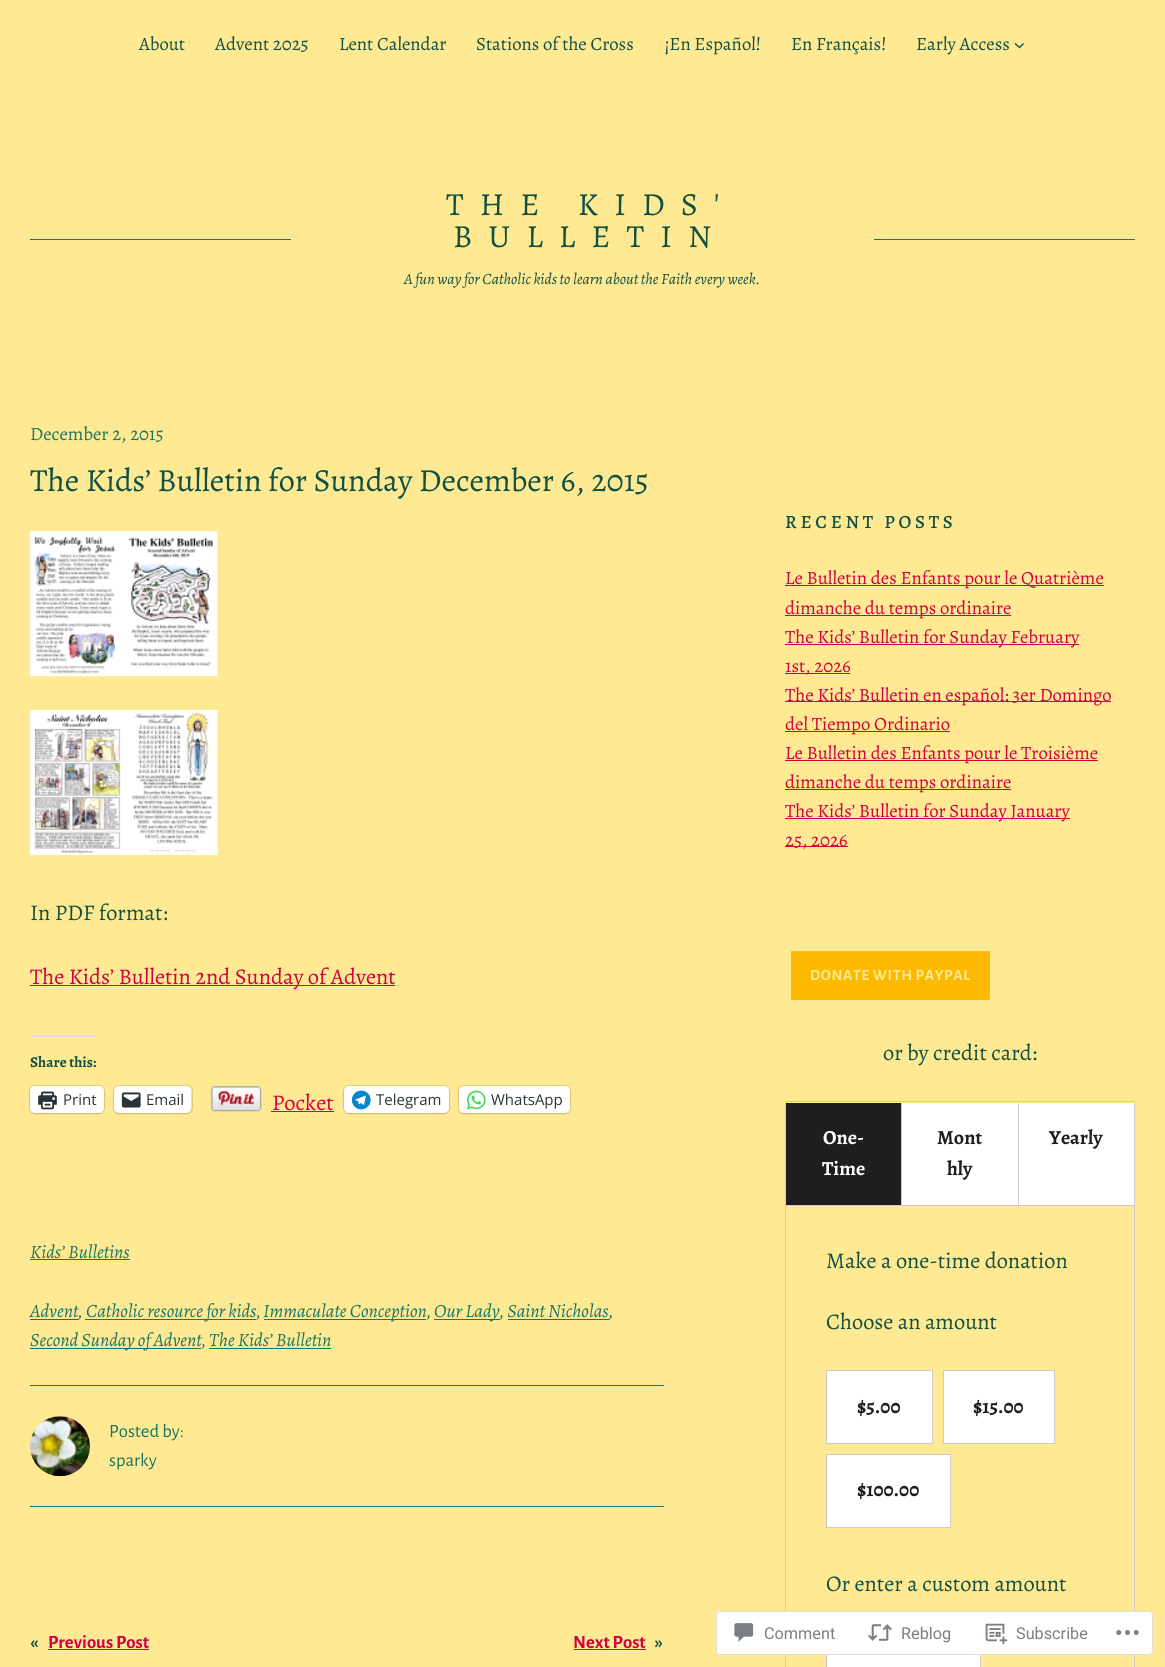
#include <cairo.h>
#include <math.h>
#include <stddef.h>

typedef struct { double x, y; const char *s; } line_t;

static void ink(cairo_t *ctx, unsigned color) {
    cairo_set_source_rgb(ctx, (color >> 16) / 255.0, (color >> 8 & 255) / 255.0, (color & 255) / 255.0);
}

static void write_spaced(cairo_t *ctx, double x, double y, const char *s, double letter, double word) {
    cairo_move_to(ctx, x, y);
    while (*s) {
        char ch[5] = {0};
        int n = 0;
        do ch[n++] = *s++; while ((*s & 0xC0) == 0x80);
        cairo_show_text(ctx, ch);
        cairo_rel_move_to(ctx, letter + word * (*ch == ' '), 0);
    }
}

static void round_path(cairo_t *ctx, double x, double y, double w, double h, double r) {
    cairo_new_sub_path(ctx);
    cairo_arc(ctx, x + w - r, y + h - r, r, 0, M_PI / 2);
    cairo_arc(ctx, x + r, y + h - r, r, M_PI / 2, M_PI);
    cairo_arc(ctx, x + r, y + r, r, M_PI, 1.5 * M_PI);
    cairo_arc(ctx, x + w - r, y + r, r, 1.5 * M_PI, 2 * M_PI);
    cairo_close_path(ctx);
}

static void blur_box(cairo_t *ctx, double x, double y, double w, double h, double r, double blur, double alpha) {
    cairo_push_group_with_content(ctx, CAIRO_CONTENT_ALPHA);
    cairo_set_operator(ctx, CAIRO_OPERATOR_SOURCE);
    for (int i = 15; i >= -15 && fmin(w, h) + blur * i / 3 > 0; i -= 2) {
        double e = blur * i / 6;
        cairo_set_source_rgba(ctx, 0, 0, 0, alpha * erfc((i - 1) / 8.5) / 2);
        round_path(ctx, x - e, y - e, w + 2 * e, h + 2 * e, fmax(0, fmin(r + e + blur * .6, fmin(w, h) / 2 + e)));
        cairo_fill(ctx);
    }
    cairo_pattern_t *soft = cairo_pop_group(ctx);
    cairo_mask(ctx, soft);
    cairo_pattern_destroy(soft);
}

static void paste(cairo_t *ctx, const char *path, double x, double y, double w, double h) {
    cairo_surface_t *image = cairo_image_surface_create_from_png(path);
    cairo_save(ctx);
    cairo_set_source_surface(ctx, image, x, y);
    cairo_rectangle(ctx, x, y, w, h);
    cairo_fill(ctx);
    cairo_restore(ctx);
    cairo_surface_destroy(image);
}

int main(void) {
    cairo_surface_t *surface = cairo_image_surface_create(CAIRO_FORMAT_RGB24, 1165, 1667);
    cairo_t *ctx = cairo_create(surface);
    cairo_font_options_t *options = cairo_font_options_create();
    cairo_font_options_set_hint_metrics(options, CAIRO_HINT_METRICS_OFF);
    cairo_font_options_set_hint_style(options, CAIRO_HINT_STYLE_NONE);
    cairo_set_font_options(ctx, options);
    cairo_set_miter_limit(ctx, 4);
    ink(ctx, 0xFFE993);
    cairo_paint(ctx);
    cairo_select_font_face(ctx, "Alegreya", CAIRO_FONT_SLANT_NORMAL, CAIRO_FONT_WEIGHT_NORMAL);
    cairo_set_font_size(ctx, 18.7);
    ink(ctx, 0x115143);
    {
        static const line_t items[] = {
            {139, 50, "About"},
            {215, 50, "Advent 2025"},
            {339, 50, "Lent Calendar"},
            {476, 50, "Stations of the Cross"},
            {664, 50, "¡En Español!"},
            {791, 50, "En Français!"},
            {916, 50, "Early Access"},
        };
        for (size_t i = 0; i < sizeof items / sizeof *items; i++) {
            cairo_move_to(ctx, items[i].x, items[i].y);
            cairo_show_text(ctx, items[i].s);
        }
    }
    cairo_new_path(ctx);
    cairo_move_to(ctx, 1015, 43.5);
    cairo_line_to(ctx, 1019.5, 47.5);
    cairo_line_to(ctx, 1023.5, 43.5);
    cairo_set_line_width(ctx, 1.4);
    cairo_stroke(ctx);
    ink(ctx, 0x187661);
    cairo_rectangle(ctx, 30, 239, 261, 1);
    cairo_fill(ctx);
    cairo_set_font_size(ctx, 32.25);
    ink(ctx, 0x115143);
    write_spaced(ctx, 446, 215, "THE KIDS'", 16.1, 0);
    write_spaced(ctx, 453, 247, "BULLETIN", 16.1, 0);
    cairo_select_font_face(ctx, "Alegreya", CAIRO_FONT_SLANT_ITALIC, CAIRO_FONT_WEIGHT_NORMAL);
    cairo_set_font_size(ctx, 15.6);
    cairo_move_to(ctx, 404, 284);
    cairo_show_text(ctx, "A fun way for Catholic kids to learn about the Faith every week.");
    ink(ctx, 0x187661);
    cairo_rectangle(ctx, 874, 239, 261, 1);
    cairo_fill(ctx);
    cairo_select_font_face(ctx, "Alegreya", CAIRO_FONT_SLANT_NORMAL, CAIRO_FONT_WEIGHT_NORMAL);
    cairo_set_font_size(ctx, 18.7);
    cairo_move_to(ctx, 30, 440);
    cairo_show_text(ctx, "December 2, 2015");
    cairo_set_font_size(ctx, 32.25);
    ink(ctx, 0x115143);
    cairo_move_to(ctx, 30, 491);
    cairo_show_text(ctx, "The Kids’ Bulletin for Sunday December 6, 2015");
    paste(ctx, "media/1.png", 30, 531, 188, 146);
    paste(ctx, "media/2.png", 30, 710, 188, 145);
    cairo_set_font_size(ctx, 22.4);
    cairo_move_to(ctx, 30, 920);
    cairo_show_text(ctx, "In PDF format:");
    ink(ctx, 0xD20044);
    cairo_rectangle(ctx, 30, 985, 365, 1);
    cairo_fill(ctx);
    cairo_move_to(ctx, 30, 984);
    cairo_show_text(ctx, "The Kids’ Bulletin 2nd Sunday of Advent");
    ink(ctx, 0xDCDCDE);
    cairo_rectangle(ctx, 30, 1036, 66, 1);
    cairo_fill(ctx);
    cairo_select_font_face(ctx, "Alegreya", CAIRO_FONT_SLANT_NORMAL, CAIRO_FONT_WEIGHT_BOLD);
    cairo_set_font_size(ctx, 15);
    ink(ctx, 0x115143);
    cairo_move_to(ctx, 30, 1067);
    cairo_show_text(ctx, "Share this:");
    round_path(ctx, 29.5, 1085.5, 75, 28, 5.5);
    ink(ctx, 0xE0CD81);
    cairo_set_line_width(ctx, 1);
    cairo_stroke(ctx);
    ink(ctx, 0x000000);
    blur_box(ctx, 30, 1088, 74, 26, 5, 1, 0.12);
    ink(ctx, 0xFFFFFF);
    round_path(ctx, 30, 1086, 74, 27, 5);
    cairo_fill(ctx);
    paste(ctx, "media/3.png", 38, 1091, 19, 19);
    cairo_select_font_face(ctx, "Open Sans", CAIRO_FONT_SLANT_NORMAL, CAIRO_FONT_WEIGHT_NORMAL);
    ink(ctx, 0x2C3338);
    cairo_move_to(ctx, 63, 1105);
    cairo_show_text(ctx, "Print");
    round_path(ctx, 113.5, 1085.5, 79, 28, 5.5);
    ink(ctx, 0xE0CD81);
    cairo_stroke(ctx);
    ink(ctx, 0x000000);
    blur_box(ctx, 114, 1088, 77, 26, 5, 1, 0.12);
    ink(ctx, 0xFFFFFF);
    round_path(ctx, 114, 1086, 77, 27, 5);
    cairo_fill(ctx);
    paste(ctx, "media/4.png", 121, 1092, 20, 16);
    ink(ctx, 0x2C3338);
    cairo_move_to(ctx, 146, 1105);
    cairo_show_text(ctx, "Email");
    paste(ctx, "media/5.png", 211, 1086, 51, 26);
    cairo_select_font_face(ctx, "Alegreya", CAIRO_FONT_SLANT_NORMAL, CAIRO_FONT_WEIGHT_NORMAL);
    cairo_set_font_size(ctx, 22.4);
    ink(ctx, 0xD20044);
    cairo_move_to(ctx, 272, 1110);
    cairo_show_text(ctx, "Pocket");
    cairo_rectangle(ctx, 271, 1111, 63, 1);
    cairo_fill(ctx);
    round_path(ctx, 343.5, 1085.5, 106, 28, 5.5);
    ink(ctx, 0xE0CD81);
    cairo_stroke(ctx);
    ink(ctx, 0x000000);
    blur_box(ctx, 344, 1088, 105, 26, 5, 1, 0.12);
    ink(ctx, 0xFFFFFF);
    round_path(ctx, 344, 1086, 105, 27, 5);
    cairo_fill(ctx);
    paste(ctx, "media/6.png", 351, 1090, 20, 20);
    cairo_select_font_face(ctx, "Open Sans", CAIRO_FONT_SLANT_NORMAL, CAIRO_FONT_WEIGHT_NORMAL);
    cairo_set_font_size(ctx, 15);
    ink(ctx, 0x2C3338);
    cairo_move_to(ctx, 376, 1105);
    cairo_show_text(ctx, "Telegram");
    round_path(ctx, 458.5, 1085.5, 112, 28, 5.5);
    ink(ctx, 0xE0CD81);
    cairo_stroke(ctx);
    ink(ctx, 0x000000);
    blur_box(ctx, 459, 1088, 111, 26, 5, 1, 0.12);
    ink(ctx, 0xFFFFFF);
    round_path(ctx, 459, 1086, 111, 27, 5);
    cairo_fill(ctx);
    paste(ctx, "media/7.png", 467, 1090, 19, 20);
    ink(ctx, 0x2C3338);
    cairo_move_to(ctx, 491, 1105);
    cairo_show_text(ctx, "WhatsApp");
    cairo_select_font_face(ctx, "Alegreya", CAIRO_FONT_SLANT_ITALIC, CAIRO_FONT_WEIGHT_NORMAL);
    cairo_set_font_size(ctx, 18.7);
    ink(ctx, 0x187661);
    cairo_move_to(ctx, 30, 1258);
    cairo_show_text(ctx, "Kids’ Bulletins");
    cairo_rectangle(ctx, 30, 1259, 100, 1);
    cairo_fill(ctx);
    cairo_rectangle(ctx, 30, 1319, 49, 1);
    cairo_fill(ctx);
    cairo_move_to(ctx, 30, 1317);
    cairo_show_text(ctx, "Advent,");
    cairo_rectangle(ctx, 85, 1319, 171, 1);
    cairo_fill(ctx);
    cairo_move_to(ctx, 86, 1317);
    cairo_show_text(ctx, "Catholic resource for kids,");
    cairo_rectangle(ctx, 264, 1319, 162, 1);
    cairo_fill(ctx);
    cairo_move_to(ctx, 263, 1317);
    cairo_show_text(ctx, "Immaculate Conception,");
    cairo_rectangle(ctx, 434, 1319, 66, 1);
    cairo_fill(ctx);
    cairo_move_to(ctx, 434, 1317);
    cairo_show_text(ctx, "Our Lady, Saint Nicholas");
    cairo_rectangle(ctx, 508, 1319, 101, 1);
    cairo_fill(ctx);
    cairo_move_to(ctx, 609, 1317);
    cairo_show_text(ctx, ",");
    cairo_rectangle(ctx, 30, 1348, 171, 1);
    cairo_fill(ctx);
    cairo_move_to(ctx, 30, 1346);
    cairo_show_text(ctx, "Second Sunday of Advent, The Kids’ Bulletin");
    cairo_rectangle(ctx, 209, 1348, 122, 1);
    cairo_fill(ctx);
    cairo_rectangle(ctx, 30, 1385, 634, 1);
    cairo_fill(ctx);
    paste(ctx, "media/8.png", 30, 1416, 60, 61);
    cairo_select_font_face(ctx, "Alegreya Sans", CAIRO_FONT_SLANT_NORMAL, CAIRO_FONT_WEIGHT_NORMAL);
    cairo_move_to(ctx, 109, 1437);
    cairo_show_text(ctx, "Posted by:");
    cairo_move_to(ctx, 109, 1466);
    cairo_show_text(ctx, "sparky");
    cairo_rectangle(ctx, 30, 1506, 634, 1);
    cairo_fill(ctx);
    cairo_select_font_face(ctx, "Alegreya Sans", CAIRO_FONT_SLANT_NORMAL, CAIRO_FONT_WEIGHT_BOLD);
    ink(ctx, 0x115143);
    cairo_move_to(ctx, 30, 1648);
    cairo_show_text(ctx, "«");
    ink(ctx, 0xD20044);
    cairo_move_to(ctx, 48, 1648);
    cairo_show_text(ctx, "Previous Post");
    cairo_rectangle(ctx, 48, 1649, 101, 1);
    cairo_fill(ctx);
    cairo_move_to(ctx, 573, 1648);
    cairo_show_text(ctx, "Next Post");
    cairo_rectangle(ctx, 574, 1649, 72, 1);
    cairo_fill(ctx);
    ink(ctx, 0x115143);
    cairo_move_to(ctx, 655, 1648);
    cairo_show_text(ctx, "»");
    cairo_select_font_face(ctx, "Alegreya Medium", CAIRO_FONT_SLANT_NORMAL, CAIRO_FONT_WEIGHT_NORMAL);
    write_spaced(ctx, 785, 528, "RECENT POSTS", 3.75, 0);
    ink(ctx, 0xD20044);
    cairo_rectangle(ctx, 785, 585, 319, 1);
    cairo_fill(ctx);
    cairo_select_font_face(ctx, "Alegreya", CAIRO_FONT_SLANT_NORMAL, CAIRO_FONT_WEIGHT_NORMAL);
    cairo_move_to(ctx, 785, 584);
    cairo_show_text(ctx, "Le Bulletin des Enfants pour le Quatrième");
    cairo_rectangle(ctx, 785, 615, 226, 1);
    cairo_fill(ctx);
    cairo_move_to(ctx, 785, 614);
    cairo_show_text(ctx, "dimanche du temps ordinaire");
    cairo_rectangle(ctx, 785, 644, 294, 1);
    cairo_fill(ctx);
    cairo_move_to(ctx, 785, 643);
    cairo_show_text(ctx, "The Kids’ Bulletin for Sunday February");
    cairo_rectangle(ctx, 785, 673, 65, 1);
    cairo_fill(ctx);
    cairo_move_to(ctx, 785, 672);
    cairo_show_text(ctx, "1st, 2026");
    cairo_rectangle(ctx, 785, 701, 326, 1);
    cairo_fill(ctx);
    cairo_move_to(ctx, 785, 701);
    cairo_show_text(ctx, "The Kids’ Bulletin en español: 3er Domingo");
    cairo_rectangle(ctx, 785, 731, 165, 1);
    cairo_fill(ctx);
    cairo_move_to(ctx, 785, 730);
    cairo_show_text(ctx, "del Tiempo Ordinario");
    cairo_rectangle(ctx, 785, 760, 313, 1);
    cairo_fill(ctx);
    cairo_move_to(ctx, 785, 759);
    cairo_show_text(ctx, "Le Bulletin des Enfants pour le Troisième");
    cairo_rectangle(ctx, 785, 789, 226, 1);
    cairo_fill(ctx);
    cairo_move_to(ctx, 785, 788);
    cairo_show_text(ctx, "dimanche du temps ordinaire");
    cairo_rectangle(ctx, 785, 818, 285, 1);
    cairo_fill(ctx);
    cairo_move_to(ctx, 785, 817);
    cairo_show_text(ctx, "The Kids’ Bulletin for Sunday January");
    cairo_rectangle(ctx, 785, 846, 63, 1);
    cairo_fill(ctx);
    cairo_move_to(ctx, 785, 846);
    cairo_show_text(ctx, "25, 2026");
    ink(ctx, 0xFCB900);
    cairo_rectangle(ctx, 791, 951, 199, 49);
    cairo_fill(ctx);
    cairo_new_path(ctx);
    cairo_move_to(ctx, 788, 948);
    cairo_line_to(ctx, 993, 948);
    cairo_line_to(ctx, 993, 1003);
    cairo_line_to(ctx, 788, 1003);
    cairo_close_path(ctx);
    ink(ctx, 0xFFE993);
    cairo_set_line_width(ctx, 6.2);
    cairo_stroke(ctx);
    cairo_select_font_face(ctx, "Alegreya Sans", CAIRO_FONT_SLANT_NORMAL, CAIRO_FONT_WEIGHT_BOLD);
    cairo_set_font_size(ctx, 15.6);
    write_spaced(ctx, 810, 980, "DONATE WITH PAYPAL", 0.6, 0);
    cairo_select_font_face(ctx, "Alegreya", CAIRO_FONT_SLANT_NORMAL, CAIRO_FONT_WEIGHT_NORMAL);
    cairo_set_font_size(ctx, 22.4);
    ink(ctx, 0x115143);
    cairo_move_to(ctx, 883, 1060);
    cairo_show_text(ctx, "or by credit card:");
    cairo_rectangle(ctx, 785.5, 1101.5, 349, 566);
    ink(ctx, 0xCCCCCC);
    cairo_set_line_width(ctx, 1);
    cairo_stroke(ctx);
    cairo_rectangle(ctx, 786, 1205, 348, 1);
    cairo_fill(ctx);
    ink(ctx, 0x1E1E1E);
    cairo_rectangle(ctx, 786, 1103, 115, 102);
    cairo_fill(ctx);
    cairo_select_font_face(ctx, "Alegreya", CAIRO_FONT_SLANT_NORMAL, CAIRO_FONT_WEIGHT_BOLD);
    cairo_set_font_size(ctx, 20);
    ink(ctx, 0xFFFFFF);
    cairo_move_to(ctx, 823, 1144);
    cairo_show_text(ctx, "One-");
    cairo_move_to(ctx, 822, 1175);
    cairo_show_text(ctx, "Time");
    cairo_rectangle(ctx, 902, 1103, 116, 102);
    cairo_fill(ctx);
    ink(ctx, 0xCCCCCC);
    cairo_rectangle(ctx, 901, 1103, 1, 102);
    cairo_fill(ctx);
    ink(ctx, 0x1E1E1E);
    cairo_move_to(ctx, 937, 1144);
    cairo_show_text(ctx, "Mont");
    cairo_move_to(ctx, 947, 1175);
    cairo_show_text(ctx, "hly");
    ink(ctx, 0xFFFFFF);
    cairo_rectangle(ctx, 1019, 1103, 115, 102);
    cairo_fill(ctx);
    ink(ctx, 0xCCCCCC);
    cairo_rectangle(ctx, 1018, 1103, 1, 102);
    cairo_fill(ctx);
    ink(ctx, 0x1E1E1E);
    cairo_move_to(ctx, 1049, 1144);
    cairo_show_text(ctx, "Yearly");
    cairo_select_font_face(ctx, "Alegreya", CAIRO_FONT_SLANT_NORMAL, CAIRO_FONT_WEIGHT_NORMAL);
    cairo_set_font_size(ctx, 22.4);
    ink(ctx, 0x115143);
    cairo_move_to(ctx, 826, 1268);
    cairo_show_text(ctx, "Make a one-time donation");
    cairo_move_to(ctx, 826, 1329);
    cairo_show_text(ctx, "Choose an amount");
    ink(ctx, 0xFFFFFF);
    cairo_rectangle(ctx, 826.5, 1370.5, 106, 73);
    cairo_fill_preserve(ctx);
    ink(ctx, 0xCCCCCC);
    cairo_stroke(ctx);
    cairo_select_font_face(ctx, "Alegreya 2", CAIRO_FONT_SLANT_NORMAL, CAIRO_FONT_WEIGHT_BOLD);
    cairo_set_font_size(ctx, 20);
    ink(ctx, 0x1E1E1E);
    cairo_move_to(ctx, 857, 1413);
    cairo_show_text(ctx, "$5.00");
    ink(ctx, 0xFFFFFF);
    cairo_rectangle(ctx, 943.5, 1370.5, 111, 73);
    cairo_fill_preserve(ctx);
    ink(ctx, 0xCCCCCC);
    cairo_stroke(ctx);
    ink(ctx, 0x1E1E1E);
    cairo_move_to(ctx, 973, 1413);
    cairo_show_text(ctx, "$15.00");
    ink(ctx, 0xFFFFFF);
    cairo_rectangle(ctx, 826.5, 1454.5, 124, 73);
    cairo_fill_preserve(ctx);
    ink(ctx, 0xCCCCCC);
    cairo_stroke(ctx);
    ink(ctx, 0x1E1E1E);
    cairo_move_to(ctx, 857, 1496);
    cairo_show_text(ctx, "$100.00");
    cairo_select_font_face(ctx, "Alegreya", CAIRO_FONT_SLANT_NORMAL, CAIRO_FONT_WEIGHT_NORMAL);
    cairo_set_font_size(ctx, 22.4);
    ink(ctx, 0x115143);
    cairo_move_to(ctx, 826, 1591);
    cairo_show_text(ctx, "Or enter a custom amount");
    ink(ctx, 0xFFFFFF);
    cairo_rectangle(ctx, 826.5, 1633.5, 154, 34);
    cairo_fill_preserve(ctx);
    ink(ctx, 0xCCCCCC);
    cairo_stroke(ctx);
    cairo_set_source_rgba(ctx, 1, 1, 1, 0.98);
    round_path(ctx, 716, 1611, 437, 44, 4);
    cairo_fill(ctx);
    round_path(ctx, 716.5, 1611.5, 436, 43, 3.5);
    cairo_set_source_rgba(ctx, 0.863, 0.863, 0.871, 0.98);
    cairo_stroke(ctx);
    paste(ctx, "media/9.png", 734, 1623, 20, 19);
    cairo_select_font_face(ctx, "Roboto", CAIRO_FONT_SLANT_NORMAL, CAIRO_FONT_WEIGHT_NORMAL);
    cairo_set_font_size(ctx, 16.25);
    ink(ctx, 0x7B7F84);
    cairo_move_to(ctx, 764, 1639);
    cairo_show_text(ctx, "Comment");
    paste(ctx, "media/10.png", 868, 1624, 24, 17);
    cairo_move_to(ctx, 901, 1639);
    cairo_show_text(ctx, "Reblog");
    paste(ctx, "media/11.png", 985, 1623, 23, 22);
    cairo_move_to(ctx, 1016, 1639);
    cairo_show_text(ctx, "Subscribe");
    paste(ctx, "media/12.png", 1116, 1630, 23, 5);
    cairo_surface_write_to_png(surface, "image.png");
    cairo_font_options_destroy(options);
    cairo_destroy(ctx);
    cairo_surface_destroy(surface);
    return 0;
}
